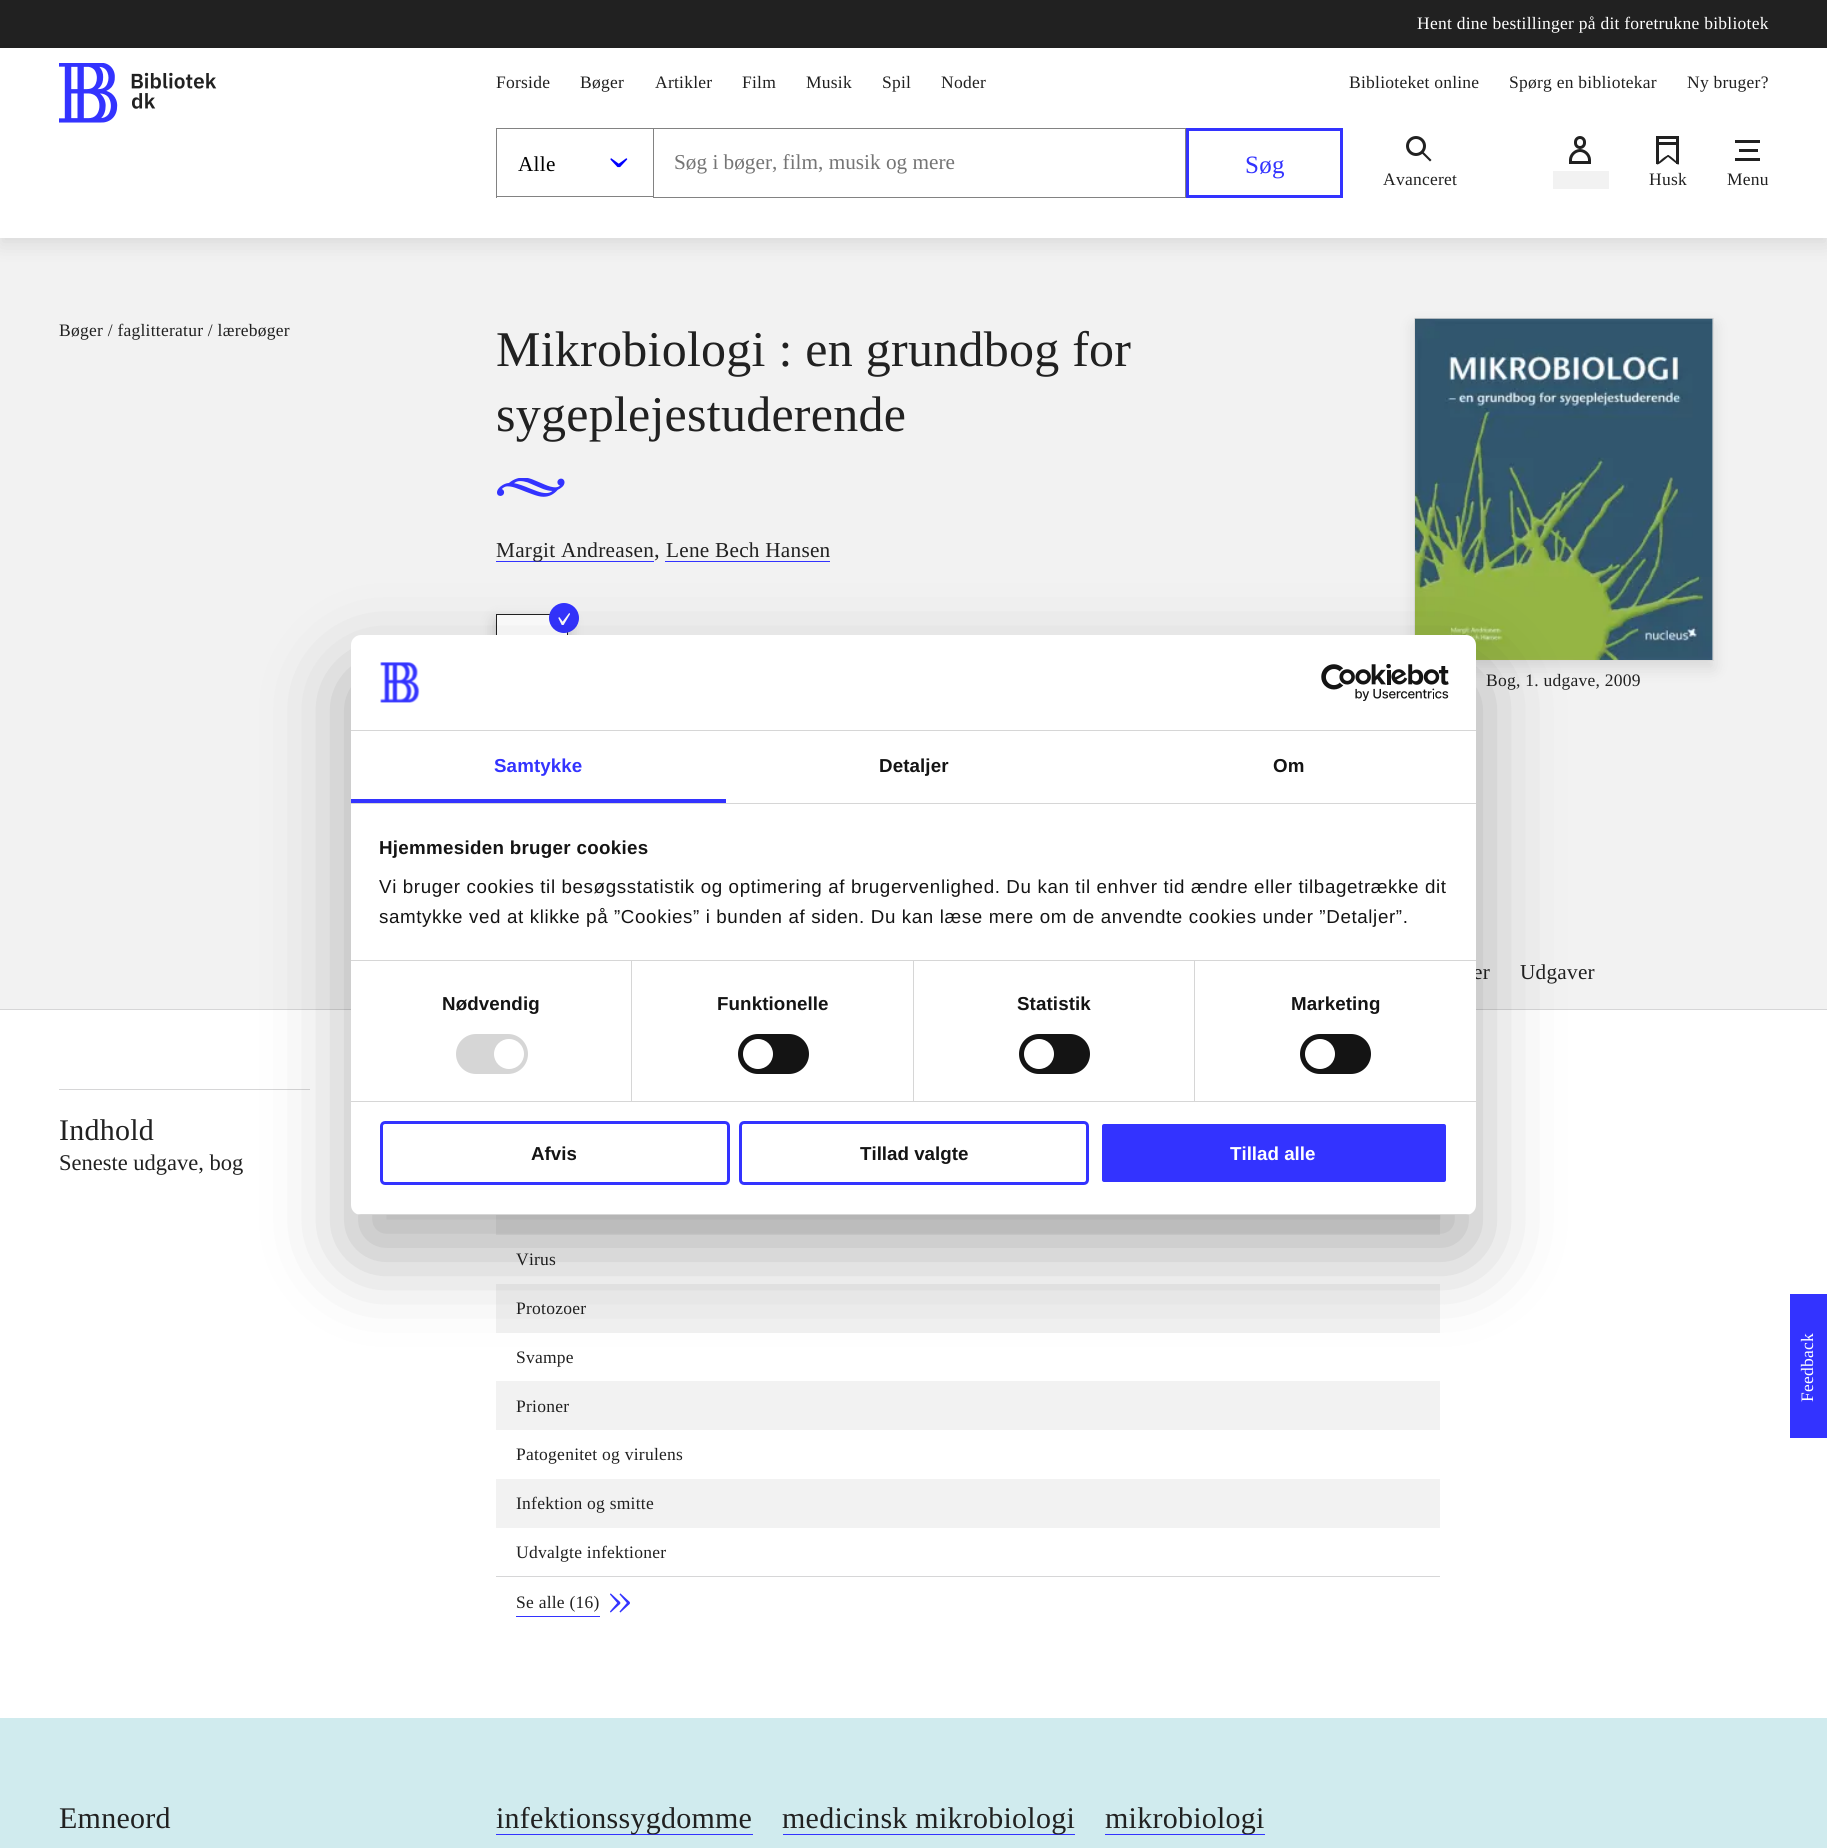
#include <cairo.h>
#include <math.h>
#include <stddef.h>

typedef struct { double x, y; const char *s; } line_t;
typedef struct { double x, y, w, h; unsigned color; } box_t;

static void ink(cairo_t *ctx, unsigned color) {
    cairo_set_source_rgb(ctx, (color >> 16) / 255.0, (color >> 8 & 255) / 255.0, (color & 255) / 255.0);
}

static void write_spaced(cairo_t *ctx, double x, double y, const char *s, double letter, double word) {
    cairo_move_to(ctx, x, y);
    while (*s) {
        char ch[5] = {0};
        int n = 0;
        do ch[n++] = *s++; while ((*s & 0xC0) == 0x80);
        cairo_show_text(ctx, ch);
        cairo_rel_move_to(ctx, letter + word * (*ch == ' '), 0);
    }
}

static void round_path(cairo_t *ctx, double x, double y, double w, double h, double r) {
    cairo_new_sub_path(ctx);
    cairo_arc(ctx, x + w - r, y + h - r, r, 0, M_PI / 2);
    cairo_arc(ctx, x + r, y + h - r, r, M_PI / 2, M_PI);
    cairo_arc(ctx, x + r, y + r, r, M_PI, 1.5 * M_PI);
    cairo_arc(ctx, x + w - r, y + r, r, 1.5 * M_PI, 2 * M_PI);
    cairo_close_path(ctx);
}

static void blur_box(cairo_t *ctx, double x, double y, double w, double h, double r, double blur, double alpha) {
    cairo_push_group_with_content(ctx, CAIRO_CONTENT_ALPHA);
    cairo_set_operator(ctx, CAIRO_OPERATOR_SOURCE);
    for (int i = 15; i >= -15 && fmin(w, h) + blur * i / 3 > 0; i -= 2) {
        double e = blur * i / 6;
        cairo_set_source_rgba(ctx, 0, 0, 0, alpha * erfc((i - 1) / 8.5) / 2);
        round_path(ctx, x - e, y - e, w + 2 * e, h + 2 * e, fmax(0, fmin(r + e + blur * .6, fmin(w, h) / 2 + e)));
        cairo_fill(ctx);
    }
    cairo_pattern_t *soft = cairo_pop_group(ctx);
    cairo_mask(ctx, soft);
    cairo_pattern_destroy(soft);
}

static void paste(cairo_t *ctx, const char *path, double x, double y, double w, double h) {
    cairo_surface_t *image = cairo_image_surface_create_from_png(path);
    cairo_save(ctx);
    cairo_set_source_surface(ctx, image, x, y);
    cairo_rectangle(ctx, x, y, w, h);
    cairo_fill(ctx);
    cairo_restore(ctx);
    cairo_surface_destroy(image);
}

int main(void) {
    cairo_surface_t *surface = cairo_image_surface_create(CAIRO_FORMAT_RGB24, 1827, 1848);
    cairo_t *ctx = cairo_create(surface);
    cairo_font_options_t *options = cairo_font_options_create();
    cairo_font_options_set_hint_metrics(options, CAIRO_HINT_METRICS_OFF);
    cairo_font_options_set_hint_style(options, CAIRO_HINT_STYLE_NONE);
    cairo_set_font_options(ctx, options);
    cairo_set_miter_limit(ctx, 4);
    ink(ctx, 0xFFFFFF);
    cairo_paint(ctx);
    ink(ctx, 0x212121);
    cairo_rectangle(ctx, 0, 0, 1827, 48);
    cairo_fill(ctx);
    cairo_select_font_face(ctx, "Liberation Serif", CAIRO_FONT_SLANT_NORMAL, CAIRO_FONT_WEIGHT_NORMAL);
    cairo_set_font_size(ctx, 17.5);
    ink(ctx, 0xFFFFFF);
    write_spaced(ctx, 1417, 29, "Hent dine bestillinger på dit foretrukne bibliotek", 0.25, 0);
    ink(ctx, 0xF2F2F2);
    cairo_rectangle(ctx, 0, 238, 1827, 771);
    cairo_fill(ctx);
    ink(ctx, 0x000000);
    blur_box(ctx, 0, 55, 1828, 190, 0, 9.5, 0.1);
    ink(ctx, 0xFFFFFF);
    cairo_rectangle(ctx, 0, 48, 1827, 190);
    cairo_fill(ctx);
    paste(ctx, "media/1.png", 59, 63, 158, 60);
    ink(ctx, 0x212121);
    {
        static const line_t items[] = {
            {496, 88, "Forside"},
            {580, 88, "Bøger"},
            {655, 88, "Artikler"},
            {742, 88, "Film"},
            {806, 88, "Musik"},
            {882, 88, "Spil"},
            {941, 88, "Noder"},
            {1349, 88, "Biblioteket online"},
            {1509, 88, "Spørg en bibliotekar"},
            {1687, 88, "Ny bruger?"},
        };
        for (size_t i = 0; i < sizeof items / sizeof *items; i++) {
            write_spaced(ctx, items[i].x, items[i].y, items[i].s, 0.25, 0);
        }
    }
    {
        static const box_t items[] = {
            {496, 128, 157, 1, 0x828282},
            {496, 196, 157, 1, 0x828282},
            {496, 128, 1, 70, 0x828282},
        };
        for (size_t i = 0; i < sizeof items / sizeof *items; i++) {
            ink(ctx, items[i].color);
            cairo_rectangle(ctx, items[i].x, items[i].y, items[i].w, items[i].h);
            cairo_fill(ctx);
        }
    }
    cairo_set_font_size(ctx, 21.25);
    ink(ctx, 0x000000);
    write_spaced(ctx, 518, 171, "Alle", 0.25, 0);
    paste(ctx, "media/2.png", 610, 158, 18, 10);
    cairo_rectangle(ctx, 653.5, 128.5, 532, 69);
    ink(ctx, 0x828282);
    cairo_set_line_width(ctx, 1);
    cairo_stroke(ctx);
    ink(ctx, 0x757575);
    cairo_move_to(ctx, 674, 169);
    cairo_show_text(ctx, "Søg i bøger, film, musik og mere");
    cairo_rectangle(ctx, 1187.5, 129.5, 154, 67);
    ink(ctx, 0x3333FF);
    cairo_set_line_width(ctx, 3);
    cairo_stroke(ctx);
    cairo_set_font_size(ctx, 25);
    write_spaced(ctx, 1245, 173, "Søg", 0.25, 0);
    cairo_new_path(ctx);
    cairo_arc(ctx, 1416, 146, 8.5, 0, 2 * M_PI);
    ink(ctx, 0x212121);
    cairo_stroke(ctx);
    cairo_new_path(ctx);
    cairo_move_to(ctx, 1422.5, 151);
    cairo_line_to(ctx, 1431.5, 160);
    cairo_line_to(ctx, 1430, 161.5);
    cairo_line_to(ctx, 1421, 152.5);
    cairo_close_path(ctx);
    cairo_fill(ctx);
    cairo_set_font_size(ctx, 17.5);
    write_spaced(ctx, 1383, 185, "Avanceret", 0.25, 0);
    round_path(ctx, 1575.5, 137.5, 9, 10, 4.5);
    cairo_stroke(ctx);
    cairo_save(ctx);
    cairo_rectangle(ctx, 1569, 149, 22, 15);
    cairo_clip(ctx);
    cairo_new_path(ctx);
    cairo_move_to(ctx, 1580, 150.5);
    cairo_curve_to(ctx, 1585, 150.5, 1589.5, 155, 1589.5, 160);
    cairo_line_to(ctx, 1589.5, 169.5);
    cairo_line_to(ctx, 1570.5, 169.5);
    cairo_line_to(ctx, 1570.5, 160);
    cairo_curve_to(ctx, 1570.5, 155, 1575, 150.5, 1580, 150.5);
    cairo_close_path(ctx);
    cairo_stroke(ctx);
    cairo_restore(ctx);
    cairo_rectangle(ctx, 1570, 161, 20, 3);
    cairo_fill(ctx);
    ink(ctx, 0xF2F2F2);
    cairo_rectangle(ctx, 1553, 171, 56, 18);
    cairo_fill(ctx);
    cairo_rectangle(ctx, 1657.5, 137.5, 20, 6);
    ink(ctx, 0x212121);
    cairo_stroke(ctx);
    cairo_rectangle(ctx, 1656, 145, 3, 19);
    cairo_fill(ctx);
    cairo_rectangle(ctx, 1676, 145, 3, 19);
    cairo_fill(ctx);
    cairo_new_path(ctx);
    cairo_move_to(ctx, 1668.5, 155);
    cairo_line_to(ctx, 1669, 156);
    cairo_curve_to(ctx, 1666.5, 158, 1660, 164, 1657.5, 164.5);
    cairo_line_to(ctx, 1656.5, 164);
    cairo_line_to(ctx, 1662, 159);
    cairo_curve_to(ctx, 1665, 156.5, 1668, 155, 1668.5, 155);
    cairo_close_path(ctx);
    cairo_fill(ctx);
    cairo_new_path(ctx);
    cairo_move_to(ctx, 1667, 156);
    cairo_line_to(ctx, 1668, 155);
    cairo_curve_to(ctx, 1670.5, 155.5, 1677, 162, 1679, 164);
    cairo_line_to(ctx, 1678.5, 164.5);
    cairo_curve_to(ctx, 1678, 165, 1675.5, 163, 1672.5, 160.5);
    cairo_close_path(ctx);
    cairo_fill(ctx);
    write_spaced(ctx, 1649, 185, "Husk", 0.25, 0);
    {
        static const box_t items[] = {
            {1735, 140, 25, 3, 0x212121},
            {1739, 149, 19, 3, 0x212121},
            {1735, 158, 25, 3, 0x212121},
        };
        for (size_t i = 0; i < sizeof items / sizeof *items; i++) {
            ink(ctx, items[i].color);
            cairo_rectangle(ctx, items[i].x, items[i].y, items[i].w, items[i].h);
            cairo_fill(ctx);
        }
    }
    write_spaced(ctx, 1727, 185, "Menu", 0.25, 0);
    write_spaced(ctx, 59, 336, "Bøger / faglitteratur / lærebøger", 0.25, 0);
    cairo_set_font_size(ctx, 50);
    write_spaced(ctx, 496, 366, "Mikrobiologi : en grundbog for", 0.25, 0);
    write_spaced(ctx, 496, 431, "sygeplejestuderende", 0.25, 0);
    paste(ctx, "media/3.png", 497, 478, 68, 19);
    ink(ctx, 0x3333FF);
    cairo_rectangle(ctx, 496, 561, 158, 1);
    cairo_fill(ctx);
    cairo_set_font_size(ctx, 21.25);
    ink(ctx, 0x212121);
    write_spaced(ctx, 496, 557, "Margit Andreasen", 0.25, 0);
    cairo_set_font_size(ctx, 22.5);
    cairo_move_to(ctx, 654, 557);
    cairo_show_text(ctx, ",");
    cairo_set_font_size(ctx, 21.25);
    write_spaced(ctx, 666, 557, "Lene Bech Hansen", 0.25, 0);
    ink(ctx, 0x3333FF);
    cairo_rectangle(ctx, 665, 561, 165, 1);
    cairo_fill(ctx);
    ink(ctx, 0x000000);
    blur_box(ctx, 496, 621, 72, 40, 0, 7.5, 0.2);
    ink(ctx, 0xFFFFFF);
    cairo_rectangle(ctx, 497, 615, 70, 20);
    cairo_fill(ctx);
    cairo_rectangle(ctx, 496.5, 614.5, 71, 39);
    ink(ctx, 0x212121);
    cairo_set_line_width(ctx, 1);
    cairo_stroke(ctx);
    ink(ctx, 0x3333FF);
    cairo_arc(ctx, 564, 618, 15, 0, 2 * M_PI);
    cairo_fill(ctx);
    paste(ctx, "media/4.png", 558, 613, 12, 12);
    cairo_save(ctx);
    cairo_set_fill_rule(ctx, CAIRO_FILL_RULE_EVEN_ODD);
    cairo_new_path(ctx);
    cairo_move_to(ctx, 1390, 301);
    cairo_line_to(ctx, 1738, 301);
    cairo_line_to(ctx, 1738, 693);
    cairo_line_to(ctx, 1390, 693);
    cairo_close_path(ctx);
    cairo_move_to(ctx, 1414, 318);
    cairo_line_to(ctx, 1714, 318);
    cairo_line_to(ctx, 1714, 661);
    cairo_line_to(ctx, 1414, 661);
    cairo_close_path(ctx);
    cairo_clip(ctx);
    ink(ctx, 0x000000);
    blur_box(ctx, 1414, 325, 300, 344, 0, 7.5, 0.1);
    cairo_restore(ctx);
    cairo_rectangle(ctx, 1414.5, 318.5, 299, 342);
    cairo_set_source_rgba(ctx, 0, 0, 0, 0.1);
    cairo_stroke(ctx);
    paste(ctx, "media/5.png", 1415, 318, 298, 342);
    cairo_set_font_size(ctx, 17.5);
    ink(ctx, 0x212121);
    write_spaced(ctx, 1486, 686, "Bog, 1. udgave, 2009", 0.25, 0);
    ink(ctx, 0xD6D6D7);
    cairo_rectangle(ctx, 0, 1009, 1827, 1);
    cairo_fill(ctx);
    cairo_set_font_size(ctx, 21.25);
    ink(ctx, 0x212121);
    write_spaced(ctx, 1473, 979, "er", 0.25, 0);
    write_spaced(ctx, 1520, 979, "Udgaver", 0.25, 0);
    ink(ctx, 0xD6D6D7);
    cairo_rectangle(ctx, 59, 1089, 251, 1);
    cairo_fill(ctx);
    cairo_set_font_size(ctx, 30);
    ink(ctx, 0x212121);
    write_spaced(ctx, 59, 1140, "Indhold", 0.25, 0);
    cairo_set_font_size(ctx, 22.5);
    cairo_move_to(ctx, 59, 1170);
    cairo_show_text(ctx, "Seneste udgave, bog");
    ink(ctx, 0xD6D6D7);
    cairo_rectangle(ctx, 496, 1576, 944, 1);
    cairo_fill(ctx);
    ink(ctx, 0xF2F2F2);
    cairo_rectangle(ctx, 496, 1215, 944, 20);
    cairo_fill(ctx);
    cairo_set_font_size(ctx, 17.5);
    ink(ctx, 0x212121);
    write_spaced(ctx, 516, 1265, "Virus", 0.25, 0);
    ink(ctx, 0xF2F2F2);
    cairo_rectangle(ctx, 496, 1284, 944, 49);
    cairo_fill(ctx);
    ink(ctx, 0x212121);
    write_spaced(ctx, 516, 1314, "Protozoer", 0.25, 0);
    write_spaced(ctx, 516, 1363, "Svampe", 0.25, 0);
    ink(ctx, 0xF2F2F2);
    cairo_rectangle(ctx, 496, 1381, 944, 49);
    cairo_fill(ctx);
    ink(ctx, 0x212121);
    write_spaced(ctx, 516, 1412, "Prioner", 0.25, 0);
    write_spaced(ctx, 516, 1460, "Patogenitet og virulens", 0.25, 0);
    ink(ctx, 0xF2F2F2);
    cairo_rectangle(ctx, 496, 1479, 944, 49);
    cairo_fill(ctx);
    ink(ctx, 0x212121);
    write_spaced(ctx, 516, 1509, "Infektion og smitte", 0.25, 0);
    write_spaced(ctx, 516, 1558, "Udvalgte infektioner", 0.25, 0);
    ink(ctx, 0x3333FF);
    cairo_rectangle(ctx, 516, 1616, 84, 1);
    cairo_fill(ctx);
    ink(ctx, 0x212121);
    write_spaced(ctx, 516, 1608, "Se alle (16)", 0.25, 0);
    paste(ctx, "media/6.png", 610, 1593, 20, 20);
    ink(ctx, 0xD0EBEE);
    cairo_rectangle(ctx, 0, 1718, 1827, 130);
    cairo_fill(ctx);
    cairo_set_font_size(ctx, 30);
    ink(ctx, 0x212121);
    write_spaced(ctx, 59, 1828, "Emneord", 0.25, 0);
    ink(ctx, 0x3333FF);
    cairo_rectangle(ctx, 496, 1834, 257, 1);
    cairo_fill(ctx);
    ink(ctx, 0x212121);
    write_spaced(ctx, 496, 1828, "infektionssygdomme", 0.25, 0);
    ink(ctx, 0x3333FF);
    cairo_rectangle(ctx, 783, 1834, 292, 1);
    cairo_fill(ctx);
    ink(ctx, 0x212121);
    write_spaced(ctx, 782, 1828, "medicinsk mikrobiologi", 0.25, 0);
    ink(ctx, 0x3333FF);
    cairo_rectangle(ctx, 1105, 1834, 160, 1);
    cairo_fill(ctx);
    ink(ctx, 0x212121);
    write_spaced(ctx, 1105, 1828, "mikrobiologi", 0.25, 0);
    ink(ctx, 0x3333FF);
    cairo_rectangle(ctx, 1790, 1294, 37, 144);
    cairo_fill(ctx);
    cairo_set_font_size(ctx, 17.5);
    ink(ctx, 0xFFFFFF);
    cairo_save(ctx);
    cairo_translate(ctx, 1813, 1402);
    cairo_rotate(ctx, -90 * M_PI / 180);
    write_spaced(ctx, 0, 0, "Feedback", 0.25, 0);
    cairo_restore(ctx);
    ink(ctx, 0x000000);
    blur_box(ctx, 351, 675, 1125, 580, 10, 42.5, 0.3);
    ink(ctx, 0xFFFFFF);
    round_path(ctx, 351, 635, 1125, 580, 10);
    cairo_fill(ctx);
    ink(ctx, 0xD6D6D6);
    cairo_rectangle(ctx, 351, 730, 1125, 1);
    cairo_fill(ctx);
    paste(ctx, "media/7.png", 380, 662, 40, 41);
    paste(ctx, "media/8.png", 1321, 664, 128, 37);
    cairo_rectangle(ctx, 351, 803, 1125, 1);
    cairo_fill(ctx);
    ink(ctx, 0x3333FF);
    cairo_rectangle(ctx, 351, 799, 375, 4);
    cairo_fill(ctx);
    cairo_select_font_face(ctx, "Liberation Sans", CAIRO_FONT_SLANT_NORMAL, CAIRO_FONT_WEIGHT_BOLD);
    cairo_set_font_size(ctx, 18.75);
    write_spaced(ctx, 494, 772, "Samtykke", 0.1, 0);
    ink(ctx, 0x141414);
    write_spaced(ctx, 879, 772, "Detaljer", 0.1, 0);
    write_spaced(ctx, 1273, 772, "Om", 0.1, 0);
    ink(ctx, 0xD6D6D6);
    cairo_rectangle(ctx, 351, 960, 1125, 1);
    cairo_fill(ctx);
    ink(ctx, 0x141414);
    write_spaced(ctx, 379, 854, "Hjemmesiden bruger cookies", 0.3, 0);
    cairo_select_font_face(ctx, "Liberation Sans", CAIRO_FONT_SLANT_NORMAL, CAIRO_FONT_WEIGHT_NORMAL);
    write_spaced(ctx, 379, 893, "Vi bruger cookies til besøgsstatistik og optimering af brugervenlighed. Du kan til enhver tid ændre eller tilbagetrække dit", 0.62, 0);
    write_spaced(ctx, 379, 923, "samtykke ved at klikke på ”Cookies” i bunden af siden. Du kan læse mere om de anvendte cookies under ”Detaljer”.", 0.62, 0);
    ink(ctx, 0xD6D6D6);
    cairo_rectangle(ctx, 351, 1101, 1125, 1);
    cairo_fill(ctx);
    cairo_rectangle(ctx, 631, 961, 1, 140);
    cairo_fill(ctx);
    cairo_select_font_face(ctx, "Liberation Sans", CAIRO_FONT_SLANT_NORMAL, CAIRO_FONT_WEIGHT_BOLD);
    ink(ctx, 0x141414);
    write_spaced(ctx, 442, 1010, "Nødvendig", 0.1, 0);
    ink(ctx, 0xD6D6D6);
    round_path(ctx, 456, 1034, 72, 40, 20);
    cairo_fill(ctx);
    ink(ctx, 0xFFFFFF);
    cairo_arc(ctx, 509, 1054, 15, 0, 2 * M_PI);
    cairo_fill(ctx);
    ink(ctx, 0xD6D6D6);
    cairo_rectangle(ctx, 913, 961, 1, 140);
    cairo_fill(ctx);
    ink(ctx, 0x141414);
    write_spaced(ctx, 717, 1010, "Funktionelle", 0.1, 0);
    round_path(ctx, 738, 1034, 71, 40, 20);
    cairo_fill(ctx);
    ink(ctx, 0xFFFFFF);
    cairo_arc(ctx, 758, 1054, 15, 0, 2 * M_PI);
    cairo_fill(ctx);
    ink(ctx, 0xD6D6D6);
    cairo_rectangle(ctx, 1194, 961, 1, 140);
    cairo_fill(ctx);
    ink(ctx, 0x141414);
    write_spaced(ctx, 1017, 1010, "Statistik", 0.1, 0);
    round_path(ctx, 1019, 1034, 71, 40, 20);
    cairo_fill(ctx);
    ink(ctx, 0xFFFFFF);
    cairo_arc(ctx, 1039, 1054, 15, 0, 2 * M_PI);
    cairo_fill(ctx);
    ink(ctx, 0x141414);
    write_spaced(ctx, 1291, 1010, "Marketing", 0.1, 0);
    round_path(ctx, 1300, 1034, 71, 40, 20);
    cairo_fill(ctx);
    ink(ctx, 0xFFFFFF);
    cairo_arc(ctx, 1320, 1054, 15, 0, 2 * M_PI);
    cairo_fill(ctx);
    cairo_save(ctx);
    round_path(ctx, 351, 635, 1125, 580, 10);
    cairo_clip(ctx);
    ink(ctx, 0xD6D6D6);
    cairo_rectangle(ctx, 351, 1214, 1125, 1);
    cairo_fill(ctx);
    cairo_restore(ctx);
    round_path(ctx, 381.5, 1122.5, 347, 61, 3.5);
    ink(ctx, 0x3333FF);
    cairo_set_line_width(ctx, 3);
    cairo_stroke(ctx);
    ink(ctx, 0x141414);
    cairo_move_to(ctx, 531, 1160);
    cairo_show_text(ctx, "Afvis");
    round_path(ctx, 740.5, 1122.5, 347, 61, 3.5);
    ink(ctx, 0x3333FF);
    cairo_stroke(ctx);
    ink(ctx, 0x141414);
    cairo_move_to(ctx, 860, 1160);
    cairo_show_text(ctx, "Tillad valgte");
    ink(ctx, 0x3333FF);
    round_path(ctx, 1100.5, 1122.5, 347, 61, 3.5);
    cairo_fill_preserve(ctx);
    ink(ctx, 0xFFFFFF);
    cairo_stroke(ctx);
    cairo_move_to(ctx, 1230, 1160);
    cairo_show_text(ctx, "Tillad alle");
    cairo_surface_write_to_png(surface, "image.png");
    cairo_font_options_destroy(options);
    cairo_destroy(ctx);
    cairo_surface_destroy(surface);
    return 0;
}
